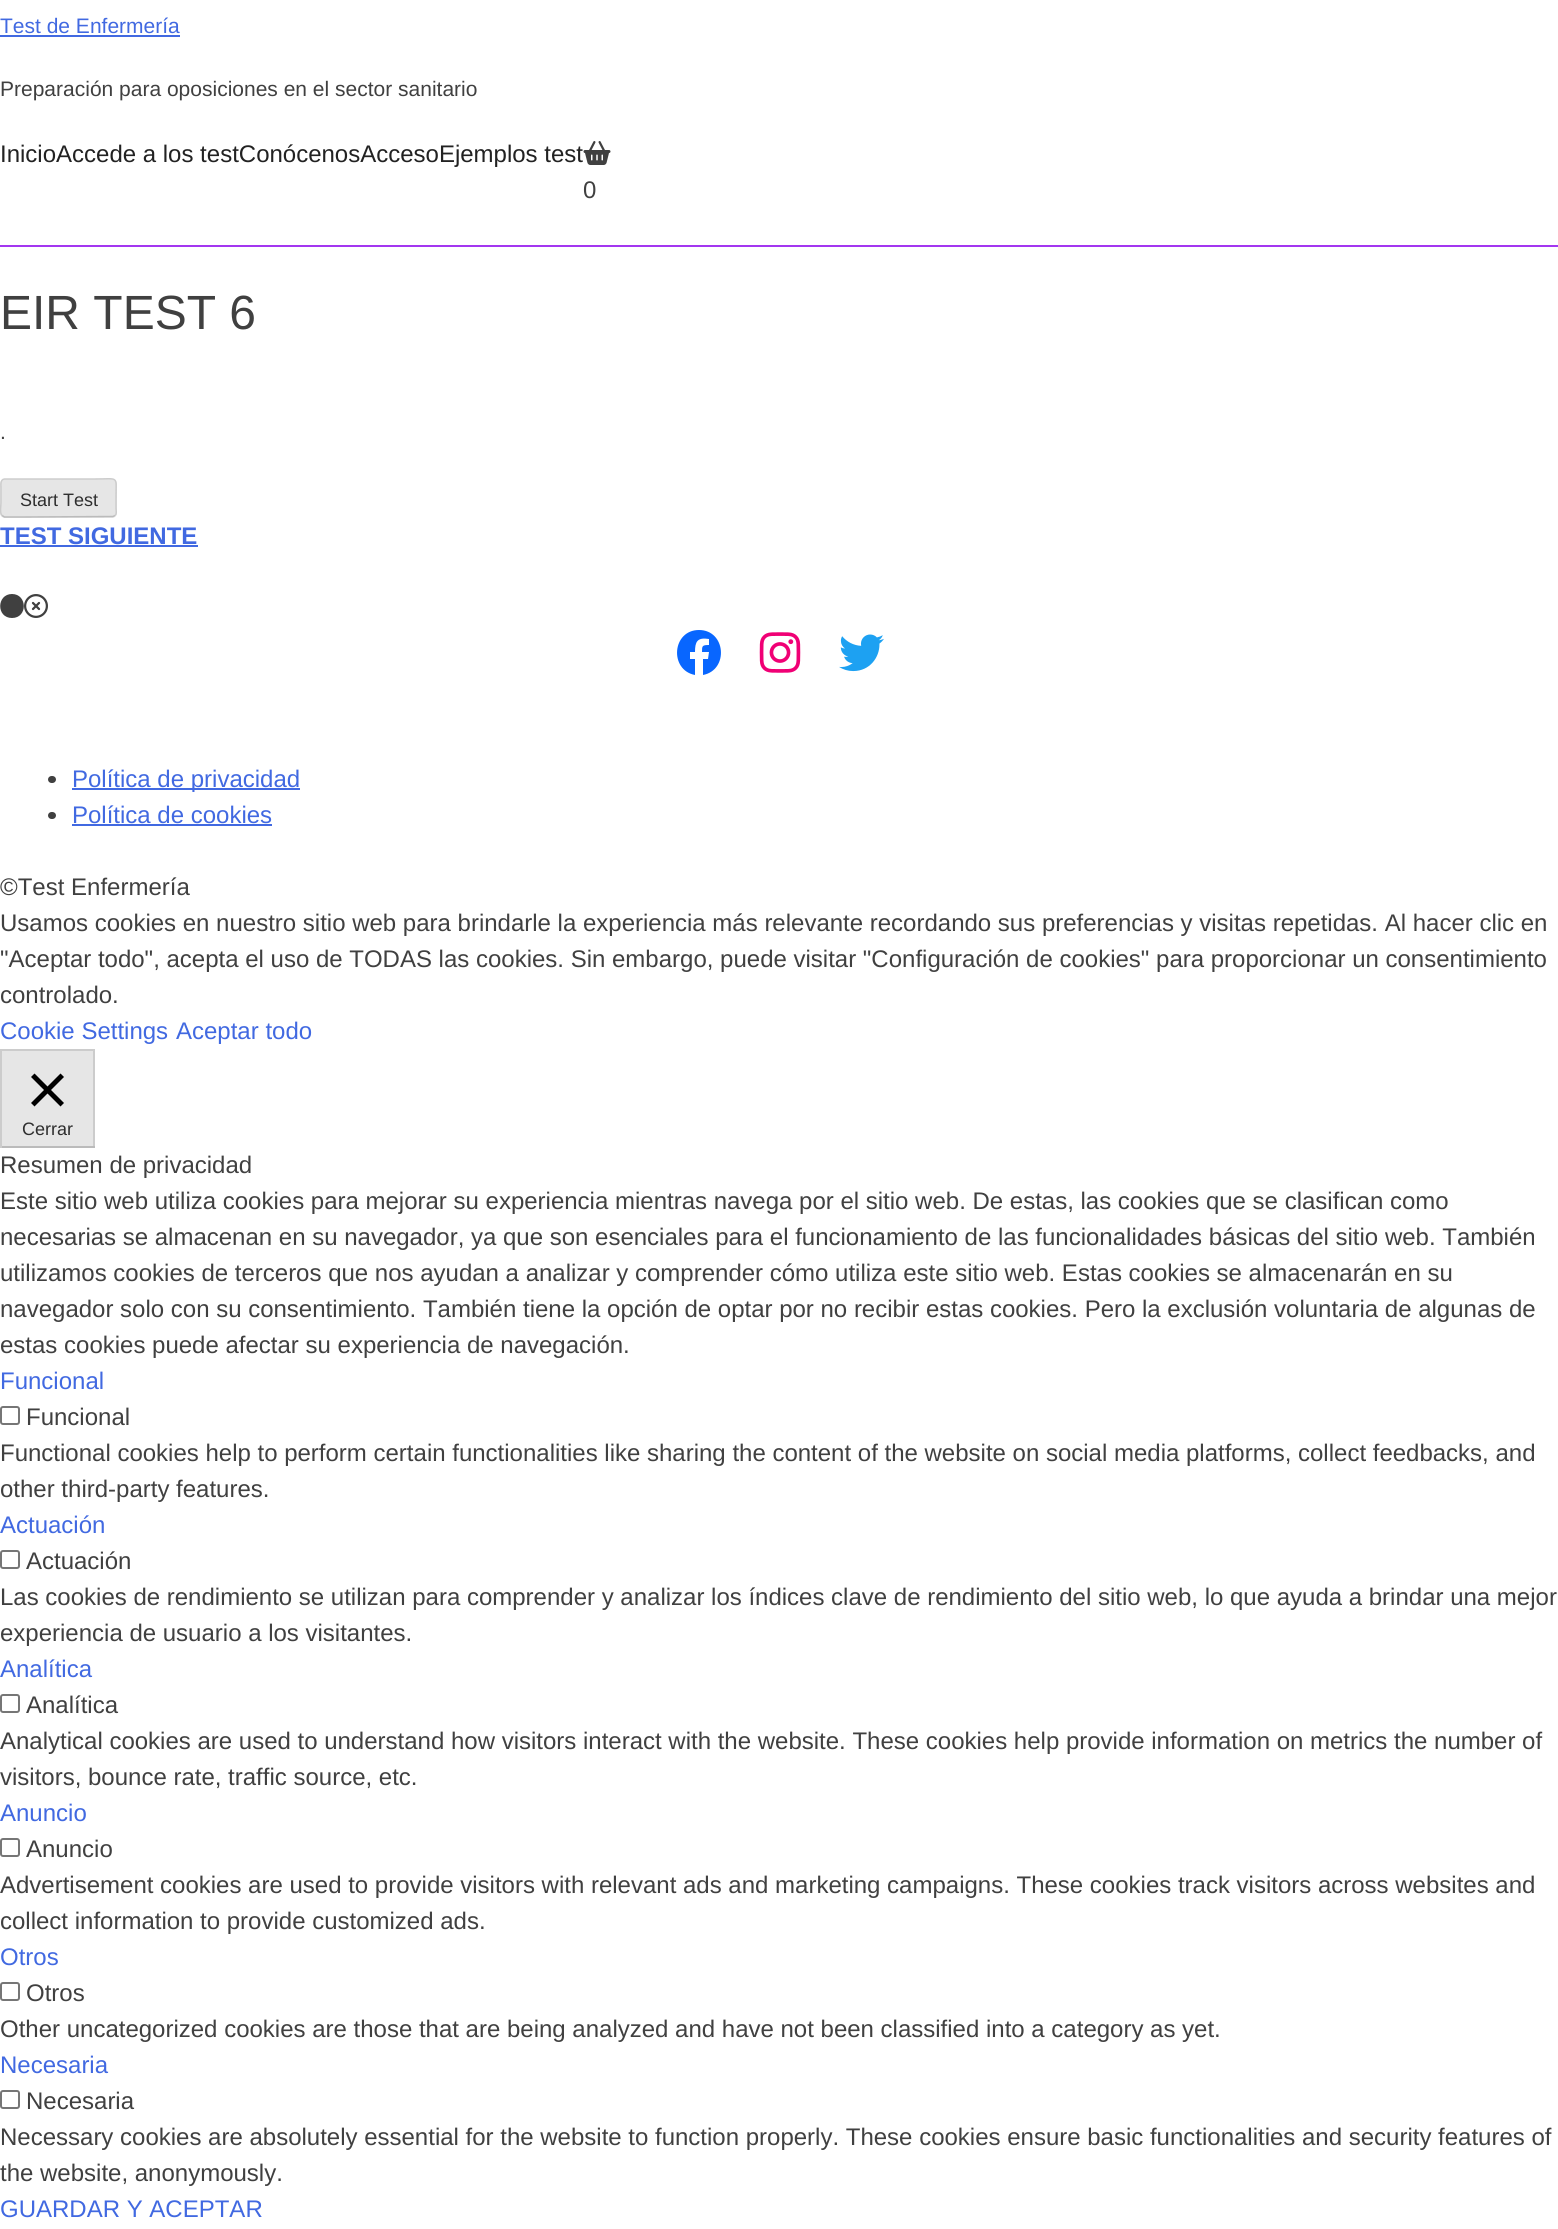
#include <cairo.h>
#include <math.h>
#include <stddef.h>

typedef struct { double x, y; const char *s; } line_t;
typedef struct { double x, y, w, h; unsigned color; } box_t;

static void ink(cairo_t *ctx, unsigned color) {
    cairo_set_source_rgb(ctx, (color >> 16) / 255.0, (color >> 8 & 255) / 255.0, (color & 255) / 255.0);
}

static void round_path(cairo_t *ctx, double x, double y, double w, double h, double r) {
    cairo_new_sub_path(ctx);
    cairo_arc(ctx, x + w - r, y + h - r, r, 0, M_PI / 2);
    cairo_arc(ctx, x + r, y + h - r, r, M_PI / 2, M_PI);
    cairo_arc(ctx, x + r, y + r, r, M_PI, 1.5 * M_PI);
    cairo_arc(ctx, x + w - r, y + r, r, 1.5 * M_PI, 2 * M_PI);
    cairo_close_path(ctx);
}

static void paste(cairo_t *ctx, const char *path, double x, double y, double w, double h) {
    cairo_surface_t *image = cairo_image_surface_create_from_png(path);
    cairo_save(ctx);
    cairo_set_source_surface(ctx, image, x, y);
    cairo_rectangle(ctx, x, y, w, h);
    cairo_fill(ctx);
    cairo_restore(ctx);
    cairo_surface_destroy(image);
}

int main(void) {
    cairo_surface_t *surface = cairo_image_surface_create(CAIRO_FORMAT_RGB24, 1558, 2229);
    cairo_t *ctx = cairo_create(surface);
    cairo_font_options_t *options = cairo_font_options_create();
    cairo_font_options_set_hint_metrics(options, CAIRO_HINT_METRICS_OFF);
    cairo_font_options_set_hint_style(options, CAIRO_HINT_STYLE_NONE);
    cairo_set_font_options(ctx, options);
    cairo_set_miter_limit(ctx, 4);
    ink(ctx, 0xFFFFFF);
    cairo_paint(ctx);
    cairo_select_font_face(ctx, "Liberation Sans", CAIRO_FONT_SLANT_NORMAL, CAIRO_FONT_WEIGHT_NORMAL);
    cairo_set_font_size(ctx, 21);
    ink(ctx, 0x4169E1);
    cairo_move_to(ctx, 0, 33);
    cairo_show_text(ctx, "Test de Enfermería");
    cairo_rectangle(ctx, 0, 35, 180, 2);
    cairo_fill(ctx);
    ink(ctx, 0x404040);
    cairo_move_to(ctx, 0, 96);
    cairo_show_text(ctx, "Preparación para oposiciones en el sector sanitario");
    cairo_set_font_size(ctx, 24);
    ink(ctx, 0x222222);
    cairo_move_to(ctx, 0, 162);
    cairo_show_text(ctx, "InicioAccede a los testConócenosAccesoEjemplos test");
    paste(ctx, "media/1.png", 583, 141, 28, 24);
    ink(ctx, 0x404040);
    cairo_move_to(ctx, 583, 198);
    cairo_show_text(ctx, "0");
    ink(ctx, 0xA336F0);
    cairo_rectangle(ctx, 0, 245, 1558, 2);
    cairo_fill(ctx);
    cairo_set_font_size(ctx, 48);
    ink(ctx, 0x404040);
    cairo_move_to(ctx, 0, 329);
    cairo_show_text(ctx, "EIR TEST 6");
    cairo_set_font_size(ctx, 21);
    cairo_move_to(ctx, 0, 439);
    cairo_show_text(ctx, ".");
    ink(ctx, 0xE6E6E6);
    round_path(ctx, 0, 479, 117, 39, 5);
    cairo_fill(ctx);
    cairo_new_path(ctx);
    cairo_move_to(ctx, 115, 515.5);
    cairo_line_to(ctx, 113, 516.5);
    cairo_line_to(ctx, 22.5, 517);
    cairo_line_to(ctx, 4.5, 517);
    cairo_line_to(ctx, 2, 515.5);
    ink(ctx, 0xBBBBBB);
    cairo_set_line_width(ctx, 1.5);
    cairo_stroke(ctx);
    cairo_new_path(ctx);
    cairo_move_to(ctx, 2, 515.5);
    cairo_curve_to(ctx, -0.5, 513, 1, 505.5, 1, 503);
    cairo_line_to(ctx, 1, 488);
    cairo_curve_to(ctx, 1, 485, 0, 479.5, 4.5, 479);
    cairo_line_to(ctx, 94.5, 479);
    cairo_curve_to(ctx, 119.5, 479, 116, 475, 116, 498);
    cairo_line_to(ctx, 116, 508);
    cairo_curve_to(ctx, 116, 510, 117, 514, 115, 515.5);
    ink(ctx, 0xCCCCCC);
    cairo_stroke(ctx);
    cairo_set_font_size(ctx, 18);
    ink(ctx, 0x2E2E2E);
    cairo_move_to(ctx, 20, 506);
    cairo_show_text(ctx, "Start Test");
    cairo_select_font_face(ctx, "Liberation Sans", CAIRO_FONT_SLANT_NORMAL, CAIRO_FONT_WEIGHT_BOLD);
    cairo_set_font_size(ctx, 24);
    ink(ctx, 0x4169E1);
    cairo_move_to(ctx, 0, 544);
    cairo_show_text(ctx, "TEST SIGUIENTE");
    cairo_rectangle(ctx, 0, 545, 198, 2);
    cairo_fill(ctx);
    ink(ctx, 0x404040);
    cairo_new_path(ctx);
    cairo_move_to(ctx, 12, 618);
    cairo_curve_to(ctx, 28, 618, 27.5, 594, 12, 594);
    cairo_curve_to(ctx, -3.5, 594, -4, 618, 12, 618);
    cairo_close_path(ctx);
    cairo_fill(ctx);
    paste(ctx, "media/2.png", 24, 594, 24, 24);
    ink(ctx, 0x0866FF);
    cairo_new_path(ctx);
    cairo_move_to(ctx, 699, 630);
    cairo_curve_to(ctx, 672, 630, 669, 670, 695, 675);
    cairo_line_to(ctx, 695, 659);
    cairo_line_to(ctx, 690, 659);
    cairo_line_to(ctx, 690, 652);
    cairo_line_to(ctx, 695, 652);
    cairo_curve_to(ctx, 695, 642, 697, 637, 709, 639);
    cairo_line_to(ctx, 709, 645);
    cairo_curve_to(ctx, 702, 645, 702, 646, 702, 652);
    cairo_line_to(ctx, 709, 652);
    cairo_line_to(ctx, 708, 659);
    cairo_line_to(ctx, 703, 659);
    cairo_line_to(ctx, 703, 675);
    cairo_curve_to(ctx, 729, 670, 726, 630, 699, 630);
    cairo_close_path(ctx);
    cairo_fill(ctx);
    paste(ctx, "media/3.png", 759, 632, 42, 41);
    paste(ctx, "media/4.png", 839, 634, 45, 38);
    ink(ctx, 0x404040);
    round_path(ctx, 48, 776, 8, 7, 3.5);
    cairo_fill(ctx);
    ink(ctx, 0x4169E1);
    cairo_rectangle(ctx, 72, 788, 228, 2);
    cairo_fill(ctx);
    cairo_select_font_face(ctx, "Liberation Sans", CAIRO_FONT_SLANT_NORMAL, CAIRO_FONT_WEIGHT_NORMAL);
    cairo_move_to(ctx, 72, 787);
    cairo_show_text(ctx, "Política de privacidad");
    ink(ctx, 0x404040);
    round_path(ctx, 48, 812, 8, 7, 3.5);
    cairo_fill(ctx);
    ink(ctx, 0x4169E1);
    cairo_move_to(ctx, 72, 823);
    cairo_show_text(ctx, "Política de cookies");
    cairo_rectangle(ctx, 72, 824, 200, 2);
    cairo_fill(ctx);
    ink(ctx, 0x404040);
    {
        static const line_t items[] = {
            {0, 895, "©Test Enfermería"},
            {0, 931, "Usamos cookies en nuestro sitio web para brindarle la experiencia más relevante recordando sus preferencias y visitas repetidas. Al hacer clic en"},
            {0, 967, "\"Aceptar todo\", acepta el uso de TODAS las cookies. Sin embargo, puede visitar \"Configuración de cookies\" para proporcionar un consentimiento"},
            {0, 1003, "controlado."},
        };
        for (size_t i = 0; i < sizeof items / sizeof *items; i++) {
            cairo_move_to(ctx, items[i].x, items[i].y);
            cairo_show_text(ctx, items[i].s);
        }
    }
    ink(ctx, 0x4169E1);
    cairo_move_to(ctx, 0, 1039);
    cairo_show_text(ctx, "Cookie Settings");
    cairo_move_to(ctx, 176, 1039);
    cairo_show_text(ctx, "Aceptar todo");
    {
        static const box_t items[] = {
            {2, 1051, 91, 95, 0xE6E6E6},
            {0, 1049, 95, 2, 0xCCCCCC},
            {93, 1049, 2, 99, 0xCCCCCC},
            {0, 1146, 95, 2, 0xBBBBBB},
            {0, 1049, 2, 99, 0xCCCCCC},
        };
        for (size_t i = 0; i < sizeof items / sizeof *items; i++) {
            ink(ctx, items[i].color);
            cairo_rectangle(ctx, items[i].x, items[i].y, items[i].w, items[i].h);
            cairo_fill(ctx);
        }
    }
    ink(ctx, 0x000000);
    cairo_new_path(ctx);
    cairo_move_to(ctx, 64, 1077);
    cairo_line_to(ctx, 60.5, 1073.5);
    cairo_line_to(ctx, 47.5, 1086.5);
    cairo_line_to(ctx, 34.5, 1073.5);
    cairo_line_to(ctx, 31, 1077);
    cairo_line_to(ctx, 44, 1090);
    cairo_line_to(ctx, 31, 1103);
    cairo_line_to(ctx, 34.5, 1106.5);
    cairo_line_to(ctx, 47.5, 1093.5);
    cairo_line_to(ctx, 60.5, 1106.5);
    cairo_line_to(ctx, 64, 1103);
    cairo_line_to(ctx, 51, 1090);
    cairo_close_path(ctx);
    cairo_fill(ctx);
    cairo_set_font_size(ctx, 18);
    ink(ctx, 0x2E2E2E);
    cairo_move_to(ctx, 22, 1135);
    cairo_show_text(ctx, "Cerrar");
    cairo_set_font_size(ctx, 24);
    ink(ctx, 0x404040);
    {
        static const line_t items[] = {
            {0, 1173, "Resumen de privacidad"},
            {0, 1209, "Este sitio web utiliza cookies para mejorar su experiencia mientras navega por el sitio web. De estas, las cookies que se clasifican como"},
            {0, 1245, "necesarias se almacenan en su navegador, ya que son esenciales para el funcionamiento de las funcionalidades básicas del sitio web. También"},
            {0, 1281, "utilizamos cookies de terceros que nos ayudan a analizar y comprender cómo utiliza este sitio web. Estas cookies se almacenarán en su"},
            {0, 1317, "navegador solo con su consentimiento. También tiene la opción de optar por no recibir estas cookies. Pero la exclusión voluntaria de algunas de"},
            {0, 1353, "estas cookies puede afectar su experiencia de navegación."},
        };
        for (size_t i = 0; i < sizeof items / sizeof *items; i++) {
            cairo_move_to(ctx, items[i].x, items[i].y);
            cairo_show_text(ctx, items[i].s);
        }
    }
    ink(ctx, 0x4169E1);
    cairo_move_to(ctx, 0, 1389);
    cairo_show_text(ctx, "Funcional");
    round_path(ctx, 1, 1407, 18, 17, 2);
    ink(ctx, 0x767676);
    cairo_set_line_width(ctx, 2);
    cairo_stroke(ctx);
    ink(ctx, 0x404040);
    {
        static const line_t items[] = {
            {26, 1425, "Funcional"},
            {0, 1461, "Functional cookies help to perform certain functionalities like sharing the content of the website on social media platforms, collect feedbacks, and"},
            {0, 1497, "other third-party features."},
        };
        for (size_t i = 0; i < sizeof items / sizeof *items; i++) {
            cairo_move_to(ctx, items[i].x, items[i].y);
            cairo_show_text(ctx, items[i].s);
        }
    }
    ink(ctx, 0x4169E1);
    cairo_move_to(ctx, 0, 1533);
    cairo_show_text(ctx, "Actuación");
    round_path(ctx, 1, 1551, 18, 17, 2);
    ink(ctx, 0x767676);
    cairo_stroke(ctx);
    ink(ctx, 0x404040);
    {
        static const line_t items[] = {
            {26, 1569, "Actuación"},
            {0, 1605, "Las cookies de rendimiento se utilizan para comprender y analizar los índices clave de rendimiento del sitio web, lo que ayuda a brindar una mejor"},
            {0, 1641, "experiencia de usuario a los visitantes."},
        };
        for (size_t i = 0; i < sizeof items / sizeof *items; i++) {
            cairo_move_to(ctx, items[i].x, items[i].y);
            cairo_show_text(ctx, items[i].s);
        }
    }
    ink(ctx, 0x4169E1);
    cairo_move_to(ctx, 0, 1677);
    cairo_show_text(ctx, "Analítica");
    round_path(ctx, 1, 1695, 18, 17, 2);
    ink(ctx, 0x767676);
    cairo_stroke(ctx);
    ink(ctx, 0x404040);
    {
        static const line_t items[] = {
            {26, 1713, "Analítica"},
            {0, 1749, "Analytical cookies are used to understand how visitors interact with the website. These cookies help provide information on metrics the number of"},
            {0, 1785, "visitors, bounce rate, traffic source, etc."},
        };
        for (size_t i = 0; i < sizeof items / sizeof *items; i++) {
            cairo_move_to(ctx, items[i].x, items[i].y);
            cairo_show_text(ctx, items[i].s);
        }
    }
    ink(ctx, 0x4169E1);
    cairo_move_to(ctx, 0, 1821);
    cairo_show_text(ctx, "Anuncio");
    round_path(ctx, 1, 1839, 18, 17, 2);
    ink(ctx, 0x767676);
    cairo_stroke(ctx);
    ink(ctx, 0x404040);
    {
        static const line_t items[] = {
            {26, 1857, "Anuncio"},
            {0, 1893, "Advertisement cookies are used to provide visitors with relevant ads and marketing campaigns. These cookies track visitors across websites and"},
            {0, 1929, "collect information to provide customized ads."},
        };
        for (size_t i = 0; i < sizeof items / sizeof *items; i++) {
            cairo_move_to(ctx, items[i].x, items[i].y);
            cairo_show_text(ctx, items[i].s);
        }
    }
    ink(ctx, 0x4169E1);
    cairo_move_to(ctx, 0, 1965);
    cairo_show_text(ctx, "Otros");
    round_path(ctx, 1, 1983, 18, 17, 2);
    ink(ctx, 0x767676);
    cairo_stroke(ctx);
    ink(ctx, 0x404040);
    cairo_move_to(ctx, 26, 2001);
    cairo_show_text(ctx, "Otros");
    cairo_move_to(ctx, 0, 2037);
    cairo_show_text(ctx, "Other uncategorized cookies are those that are being analyzed and have not been classified into a category as yet.");
    ink(ctx, 0x4169E1);
    cairo_move_to(ctx, 0, 2073);
    cairo_show_text(ctx, "Necesaria");
    round_path(ctx, 1, 2091, 18, 17, 2);
    ink(ctx, 0x767676);
    cairo_stroke(ctx);
    ink(ctx, 0x404040);
    {
        static const line_t items[] = {
            {26, 2109, "Necesaria"},
            {0, 2145, "Necessary cookies are absolutely essential for the website to function properly. These cookies ensure basic functionalities and security features of"},
            {0, 2181, "the website, anonymously."},
        };
        for (size_t i = 0; i < sizeof items / sizeof *items; i++) {
            cairo_move_to(ctx, items[i].x, items[i].y);
            cairo_show_text(ctx, items[i].s);
        }
    }
    ink(ctx, 0x4169E1);
    cairo_move_to(ctx, 0, 2217);
    cairo_show_text(ctx, "GUARDAR Y ACEPTAR");
    cairo_surface_write_to_png(surface, "image.png");
    cairo_font_options_destroy(options);
    cairo_destroy(ctx);
    cairo_surface_destroy(surface);
    return 0;
}
